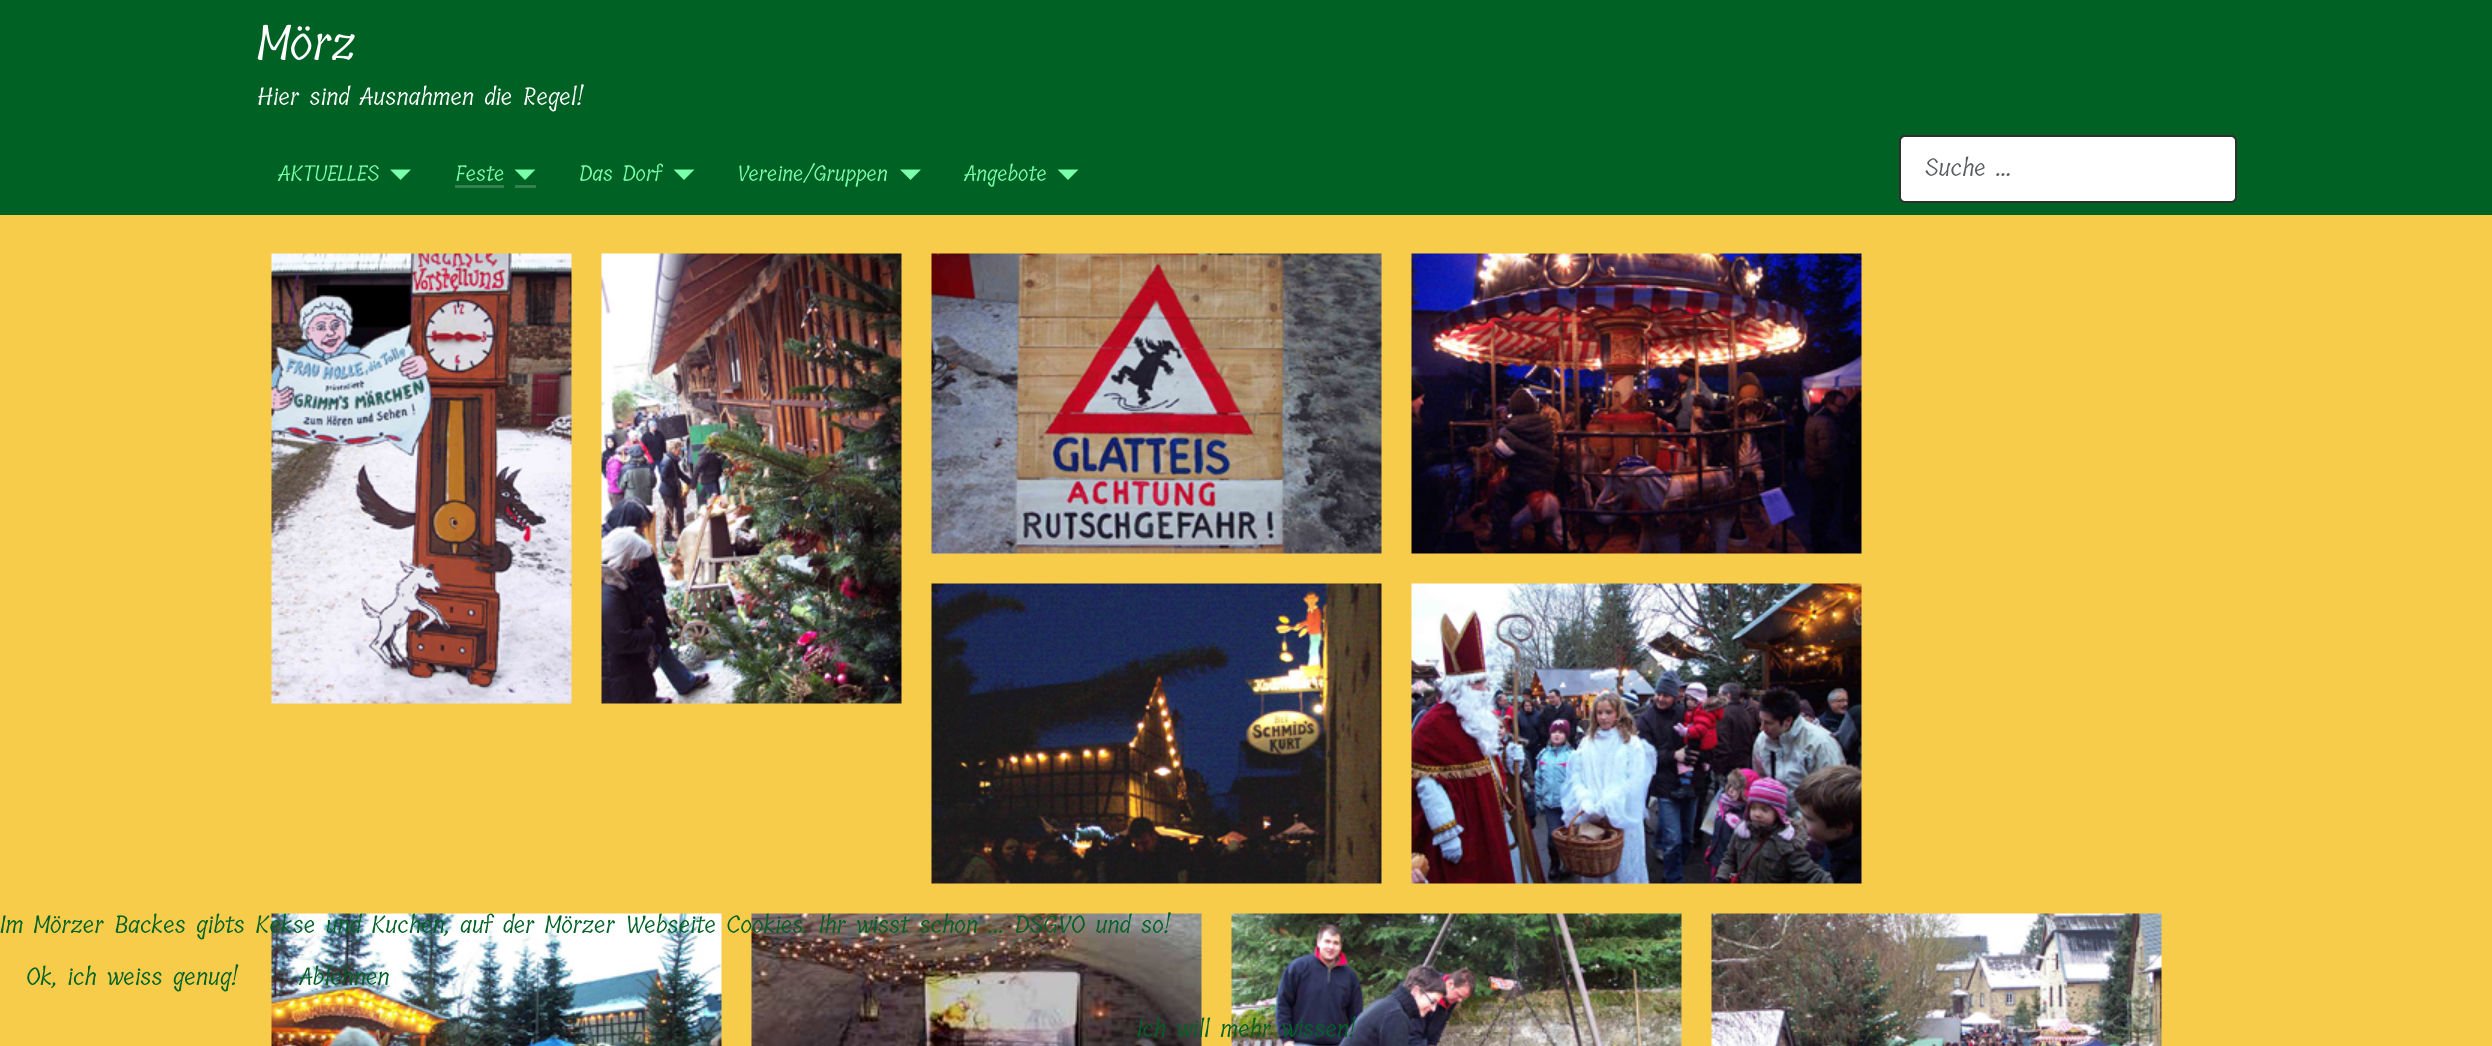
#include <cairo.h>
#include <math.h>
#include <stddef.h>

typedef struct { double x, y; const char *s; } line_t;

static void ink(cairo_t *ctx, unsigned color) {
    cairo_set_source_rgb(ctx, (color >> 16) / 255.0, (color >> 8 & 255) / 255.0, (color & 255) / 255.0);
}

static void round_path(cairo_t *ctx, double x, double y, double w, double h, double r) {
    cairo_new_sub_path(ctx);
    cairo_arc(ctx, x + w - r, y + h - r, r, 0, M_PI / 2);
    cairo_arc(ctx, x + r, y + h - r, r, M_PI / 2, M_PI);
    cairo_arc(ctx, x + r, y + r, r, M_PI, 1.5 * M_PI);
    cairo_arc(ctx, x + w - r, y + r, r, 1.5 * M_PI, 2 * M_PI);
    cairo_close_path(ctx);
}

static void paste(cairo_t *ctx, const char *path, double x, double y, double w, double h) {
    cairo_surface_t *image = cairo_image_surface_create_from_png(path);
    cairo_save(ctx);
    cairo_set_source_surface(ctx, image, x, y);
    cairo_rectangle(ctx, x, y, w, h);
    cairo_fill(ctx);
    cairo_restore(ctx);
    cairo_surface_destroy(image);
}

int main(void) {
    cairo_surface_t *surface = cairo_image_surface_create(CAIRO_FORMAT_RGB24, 2492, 1046);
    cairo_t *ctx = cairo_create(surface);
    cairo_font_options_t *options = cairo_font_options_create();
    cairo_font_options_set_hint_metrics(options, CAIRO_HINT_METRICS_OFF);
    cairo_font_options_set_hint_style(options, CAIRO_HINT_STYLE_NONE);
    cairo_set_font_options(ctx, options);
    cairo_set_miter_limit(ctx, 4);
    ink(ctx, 0xF7CC4A);
    cairo_paint(ctx);
    ink(ctx, 0x006124);
    cairo_rectangle(ctx, 0, 0, 2492, 215);
    cairo_fill(ctx);
    cairo_select_font_face(ctx, "Tillana", CAIRO_FONT_SLANT_NORMAL, CAIRO_FONT_WEIGHT_NORMAL);
    cairo_set_font_size(ctx, 48);
    ink(ctx, 0xFFFFFF);
    cairo_move_to(ctx, 257, 60);
    cairo_show_text(ctx, "Mörz");
    cairo_set_font_size(ctx, 24);
    cairo_move_to(ctx, 257, 105);
    cairo_show_text(ctx, "Hier sind Ausnahmen die Regel!");
    cairo_set_font_size(ctx, 21.5);
    ink(ctx, 0x7AFFAA);
    cairo_move_to(ctx, 278, 181);
    cairo_show_text(ctx, "AKTUELLES");
    cairo_new_path(ctx);
    cairo_move_to(ctx, 390, 169.5);
    cairo_line_to(ctx, 411, 169.5);
    cairo_line_to(ctx, 400.5, 180);
    cairo_close_path(ctx);
    cairo_fill(ctx);
    cairo_move_to(ctx, 455, 181);
    cairo_show_text(ctx, "Feste");
    ink(ctx, 0x338150);
    cairo_rectangle(ctx, 455, 185, 49, 3);
    cairo_fill(ctx);
    ink(ctx, 0x7AFFAA);
    cairo_new_path(ctx);
    cairo_move_to(ctx, 514.5, 169.5);
    cairo_line_to(ctx, 535.5, 169.5);
    cairo_line_to(ctx, 525, 180);
    cairo_close_path(ctx);
    cairo_fill(ctx);
    ink(ctx, 0x338150);
    cairo_rectangle(ctx, 515, 185, 21, 3);
    cairo_fill(ctx);
    cairo_save(ctx);
    cairo_rectangle(ctx, 579, 162, 84, 26);
    cairo_clip(ctx);
    ink(ctx, 0x7AFFAA);
    cairo_move_to(ctx, 579, 181);
    cairo_show_text(ctx, "Das Dorf");
    cairo_restore(ctx);
    ink(ctx, 0x7AFFAA);
    cairo_new_path(ctx);
    cairo_move_to(ctx, 673.5, 169.5);
    cairo_line_to(ctx, 694.5, 169.5);
    cairo_line_to(ctx, 684, 180);
    cairo_close_path(ctx);
    cairo_fill(ctx);
    cairo_move_to(ctx, 737, 181);
    cairo_show_text(ctx, "Vereine/Gruppen");
    cairo_new_path(ctx);
    cairo_move_to(ctx, 900, 169.5);
    cairo_line_to(ctx, 921, 169.5);
    cairo_line_to(ctx, 910.5, 180);
    cairo_close_path(ctx);
    cairo_fill(ctx);
    cairo_move_to(ctx, 964, 181);
    cairo_show_text(ctx, "Angebote");
    cairo_new_path(ctx);
    cairo_move_to(ctx, 1057.5, 169.5);
    cairo_line_to(ctx, 1078.5, 169.5);
    cairo_line_to(ctx, 1068, 180);
    cairo_close_path(ctx);
    cairo_fill(ctx);
    ink(ctx, 0xFFFFFF);
    round_path(ctx, 1900, 136, 336, 66, 5);
    cairo_fill_preserve(ctx);
    ink(ctx, 0x2D2F30);
    cairo_stroke(ctx);
    cairo_set_font_size(ctx, 24);
    ink(ctx, 0x595C5F);
    cairo_move_to(ctx, 1925, 176);
    cairo_show_text(ctx, "Suche …");
    paste(ctx, "media/1.png", 271, 253, 301, 451);
    paste(ctx, "media/2.png", 601, 253, 301, 451);
    paste(ctx, "media/3.png", 931, 253, 451, 301);
    paste(ctx, "media/4.png", 1411, 253, 451, 301);
    paste(ctx, "media/5.png", 931, 583, 451, 301);
    paste(ctx, "media/6.png", 1411, 583, 451, 301);
    paste(ctx, "media/7.png", 271, 913, 451, 133);
    paste(ctx, "media/8.png", 751, 913, 451, 133);
    paste(ctx, "media/9.png", 1231, 913, 451, 133);
    paste(ctx, "media/10.png", 1711, 913, 451, 133);
    ink(ctx, 0x006124);
    {
        static const line_t items[] = {
            {0, 933, "Im Mörzer Backes gibts Kekse und Kuchen, auf der Mörzer Webseite Cookies. Ihr wisst schon ... DSGVO und so!"},
            {26, 985, "Ok, ich weiss genug!"},
            {299, 985, "Ablehnen"},
            {1137, 1037, "Ich will mehr wissen!"},
        };
        for (size_t i = 0; i < sizeof items / sizeof *items; i++) {
            cairo_move_to(ctx, items[i].x, items[i].y);
            cairo_show_text(ctx, items[i].s);
        }
    }
    cairo_surface_write_to_png(surface, "image.png");
    cairo_font_options_destroy(options);
    cairo_destroy(ctx);
    cairo_surface_destroy(surface);
    return 0;
}
